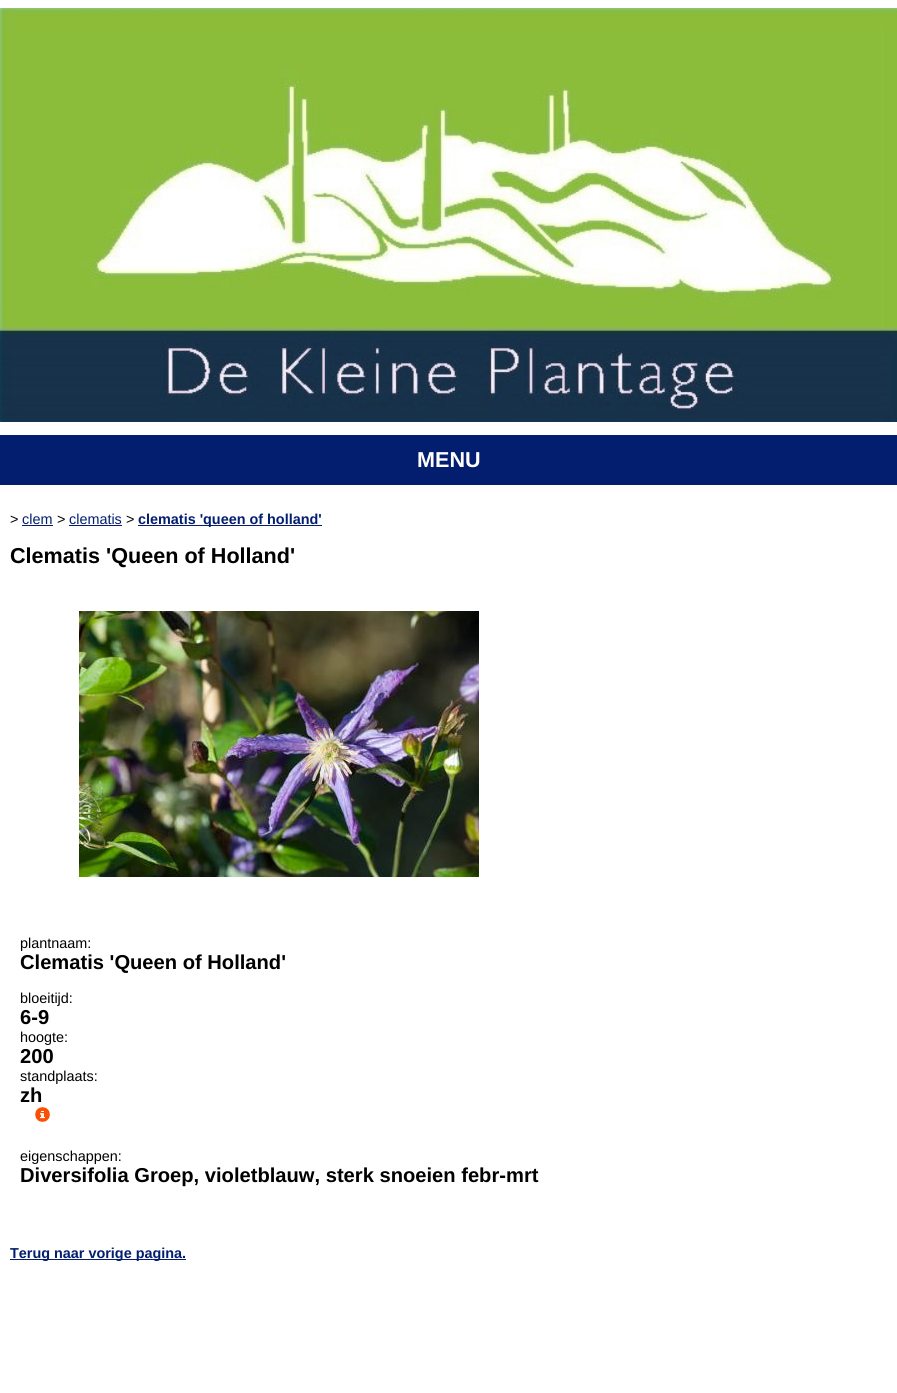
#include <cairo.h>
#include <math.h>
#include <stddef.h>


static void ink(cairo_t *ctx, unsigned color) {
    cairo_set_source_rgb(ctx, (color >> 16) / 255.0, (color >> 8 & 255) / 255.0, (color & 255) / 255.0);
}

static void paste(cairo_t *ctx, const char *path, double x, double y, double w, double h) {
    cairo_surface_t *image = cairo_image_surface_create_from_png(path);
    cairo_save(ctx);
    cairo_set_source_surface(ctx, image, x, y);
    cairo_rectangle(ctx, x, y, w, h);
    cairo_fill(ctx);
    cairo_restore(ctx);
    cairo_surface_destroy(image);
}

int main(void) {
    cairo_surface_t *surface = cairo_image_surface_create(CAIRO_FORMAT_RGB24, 897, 1393);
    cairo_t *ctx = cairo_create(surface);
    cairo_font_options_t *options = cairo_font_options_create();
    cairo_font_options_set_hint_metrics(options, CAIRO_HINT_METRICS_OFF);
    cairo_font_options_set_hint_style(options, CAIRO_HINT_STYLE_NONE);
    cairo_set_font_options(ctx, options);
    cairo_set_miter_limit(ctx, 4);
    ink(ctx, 0xFFFFFF);
    cairo_paint(ctx);
    paste(ctx, "media/1.png", 0, 8, 897, 414);
    ink(ctx, 0x031D6F);
    cairo_rectangle(ctx, 0, 435, 897, 50);
    cairo_fill(ctx);
    cairo_select_font_face(ctx, "Liberation Sans", CAIRO_FONT_SLANT_NORMAL, CAIRO_FONT_WEIGHT_BOLD);
    cairo_set_font_size(ctx, 21.6);
    ink(ctx, 0xFFFFFF);
    cairo_move_to(ctx, 417, 467);
    cairo_show_text(ctx, "MENU");
    cairo_select_font_face(ctx, "Liberation Sans", CAIRO_FONT_SLANT_NORMAL, CAIRO_FONT_WEIGHT_NORMAL);
    cairo_set_font_size(ctx, 14.4);
    ink(ctx, 0x000000);
    cairo_move_to(ctx, 10, 524);
    cairo_show_text(ctx, ">");
    ink(ctx, 0x031D6F);
    cairo_move_to(ctx, 22, 524);
    cairo_show_text(ctx, "clem");
    cairo_rectangle(ctx, 22, 525, 31, 1);
    cairo_fill(ctx);
    ink(ctx, 0x000000);
    cairo_move_to(ctx, 57, 524);
    cairo_show_text(ctx, ">");
    ink(ctx, 0x031D6F);
    cairo_move_to(ctx, 69, 524);
    cairo_show_text(ctx, "clematis");
    cairo_rectangle(ctx, 69, 525, 53, 1);
    cairo_fill(ctx);
    ink(ctx, 0x000000);
    cairo_move_to(ctx, 126, 524);
    cairo_show_text(ctx, ">");
    ink(ctx, 0x031D6F);
    cairo_rectangle(ctx, 138, 525, 184, 1);
    cairo_fill(ctx);
    cairo_select_font_face(ctx, "Liberation Sans", CAIRO_FONT_SLANT_NORMAL, CAIRO_FONT_WEIGHT_BOLD);
    cairo_move_to(ctx, 138, 524);
    cairo_show_text(ctx, "clematis 'queen of holland'");
    cairo_set_font_size(ctx, 21.6);
    ink(ctx, 0x000000);
    cairo_move_to(ctx, 10, 563);
    cairo_show_text(ctx, "Clematis 'Queen of Holland'");
    paste(ctx, "media/2.png", 79, 611, 400, 266);
    cairo_select_font_face(ctx, "Liberation Sans", CAIRO_FONT_SLANT_NORMAL, CAIRO_FONT_WEIGHT_NORMAL);
    cairo_set_font_size(ctx, 14.4);
    cairo_move_to(ctx, 20, 948);
    cairo_show_text(ctx, "plantnaam:");
    cairo_select_font_face(ctx, "Liberation Sans", CAIRO_FONT_SLANT_NORMAL, CAIRO_FONT_WEIGHT_BOLD);
    cairo_set_font_size(ctx, 20.15);
    cairo_move_to(ctx, 20, 969);
    cairo_show_text(ctx, "Clematis 'Queen of Holland'");
    cairo_select_font_face(ctx, "Liberation Sans", CAIRO_FONT_SLANT_NORMAL, CAIRO_FONT_WEIGHT_NORMAL);
    cairo_set_font_size(ctx, 14.4);
    cairo_move_to(ctx, 20, 1003);
    cairo_show_text(ctx, "bloeitijd:");
    cairo_select_font_face(ctx, "Liberation Sans", CAIRO_FONT_SLANT_NORMAL, CAIRO_FONT_WEIGHT_BOLD);
    cairo_set_font_size(ctx, 20.15);
    cairo_move_to(ctx, 20, 1024);
    cairo_show_text(ctx, "6-9");
    cairo_select_font_face(ctx, "Liberation Sans", CAIRO_FONT_SLANT_NORMAL, CAIRO_FONT_WEIGHT_NORMAL);
    cairo_set_font_size(ctx, 14.4);
    cairo_move_to(ctx, 20, 1042);
    cairo_show_text(ctx, "hoogte:");
    cairo_select_font_face(ctx, "Liberation Sans", CAIRO_FONT_SLANT_NORMAL, CAIRO_FONT_WEIGHT_BOLD);
    cairo_set_font_size(ctx, 20.15);
    cairo_move_to(ctx, 20, 1063);
    cairo_show_text(ctx, "200");
    cairo_select_font_face(ctx, "Liberation Sans", CAIRO_FONT_SLANT_NORMAL, CAIRO_FONT_WEIGHT_NORMAL);
    cairo_set_font_size(ctx, 14.4);
    cairo_move_to(ctx, 20, 1081);
    cairo_show_text(ctx, "standplaats:");
    cairo_select_font_face(ctx, "Liberation Sans", CAIRO_FONT_SLANT_NORMAL, CAIRO_FONT_WEIGHT_BOLD);
    cairo_set_font_size(ctx, 20.15);
    cairo_move_to(ctx, 20, 1102);
    cairo_show_text(ctx, "zh");
    paste(ctx, "media/3.png", 35, 1107, 15, 15);
    cairo_select_font_face(ctx, "Liberation Sans", CAIRO_FONT_SLANT_NORMAL, CAIRO_FONT_WEIGHT_NORMAL);
    cairo_set_font_size(ctx, 14.4);
    cairo_move_to(ctx, 20, 1161);
    cairo_show_text(ctx, "eigenschappen:");
    cairo_select_font_face(ctx, "Liberation Sans", CAIRO_FONT_SLANT_NORMAL, CAIRO_FONT_WEIGHT_BOLD);
    cairo_set_font_size(ctx, 20.15);
    cairo_move_to(ctx, 20, 1182);
    cairo_show_text(ctx, "Diversifolia Groep, violetblauw, sterk snoeien febr-mrt");
    ink(ctx, 0x031D6F);
    cairo_rectangle(ctx, 10, 1259, 176, 1);
    cairo_fill(ctx);
    cairo_set_font_size(ctx, 14.4);
    cairo_move_to(ctx, 10, 1258);
    cairo_show_text(ctx, "Terug naar vorige pagina.");
    cairo_surface_write_to_png(surface, "image.png");
    cairo_font_options_destroy(options);
    cairo_destroy(ctx);
    cairo_surface_destroy(surface);
    return 0;
}
